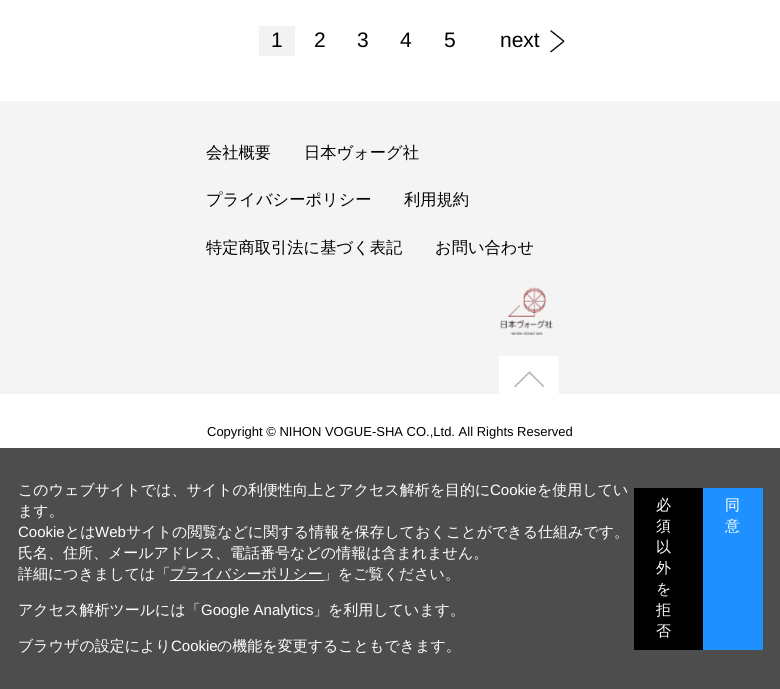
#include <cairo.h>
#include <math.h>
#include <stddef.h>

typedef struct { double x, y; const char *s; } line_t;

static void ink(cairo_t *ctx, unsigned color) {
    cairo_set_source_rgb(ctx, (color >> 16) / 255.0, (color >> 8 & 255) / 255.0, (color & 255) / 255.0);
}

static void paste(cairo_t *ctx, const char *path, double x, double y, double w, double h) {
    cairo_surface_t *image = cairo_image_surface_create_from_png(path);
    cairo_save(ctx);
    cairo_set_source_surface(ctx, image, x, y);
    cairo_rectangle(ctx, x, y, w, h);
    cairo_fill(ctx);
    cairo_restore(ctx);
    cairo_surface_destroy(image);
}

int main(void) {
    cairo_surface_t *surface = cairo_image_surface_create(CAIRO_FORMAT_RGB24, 780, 689);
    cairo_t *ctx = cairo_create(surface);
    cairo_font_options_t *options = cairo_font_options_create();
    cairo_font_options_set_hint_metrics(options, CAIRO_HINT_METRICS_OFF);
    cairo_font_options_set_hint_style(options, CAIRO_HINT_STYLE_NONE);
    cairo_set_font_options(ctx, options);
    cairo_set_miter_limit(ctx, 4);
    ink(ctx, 0xFFFFFF);
    cairo_paint(ctx);
    ink(ctx, 0xF2F2F2);
    cairo_rectangle(ctx, 259, 26, 36, 30);
    cairo_fill(ctx);
    cairo_select_font_face(ctx, "Liberation Sans", CAIRO_FONT_SLANT_NORMAL, CAIRO_FONT_WEIGHT_NORMAL);
    cairo_set_font_size(ctx, 21);
    ink(ctx, 0x000000);
    {
        static const line_t items[] = {
            {271, 47, "1"},
            {314, 47, "2"},
            {357, 47, "3"},
            {400, 47, "4"},
            {444, 47, "5"},
        };
        for (size_t i = 0; i < sizeof items / sizeof *items; i++) {
            cairo_move_to(ctx, items[i].x, items[i].y);
            cairo_show_text(ctx, items[i].s);
        }
    }
    paste(ctx, "media/1.png", 550, 30, 15, 23);
    cairo_move_to(ctx, 500, 47);
    cairo_show_text(ctx, "next");
    ink(ctx, 0xF4F4F4);
    cairo_rectangle(ctx, 0, 101, 780, 293);
    cairo_fill(ctx);
    cairo_select_font_face(ctx, "WenQuanYi Zen Hei Medium", CAIRO_FONT_SLANT_NORMAL, CAIRO_FONT_WEIGHT_NORMAL);
    cairo_set_font_size(ctx, 16.25);
    ink(ctx, 0x000000);
    {
        static const line_t items[] = {
            {206, 158, "会社概要"},
            {304, 158, "日本ヴォーグ社"},
            {206, 205, "プライバシーポリシー"},
            {404, 205, "利用規約"},
            {206, 253, "特定商取引法に基づく表記"},
            {435, 253, "お問い合わせ"},
        };
        for (size_t i = 0; i < sizeof items / sizeof *items; i++) {
            cairo_move_to(ctx, items[i].x, items[i].y);
            cairo_show_text(ctx, items[i].s);
        }
    }
    paste(ctx, "media/2.png", 500, 287, 53, 48);
    paste(ctx, "media/3.png", 499, 356, 60, 38);
    cairo_select_font_face(ctx, "Liberation Sans", CAIRO_FONT_SLANT_NORMAL, CAIRO_FONT_WEIGHT_NORMAL);
    cairo_set_font_size(ctx, 13);
    cairo_move_to(ctx, 207, 436);
    cairo_show_text(ctx, "Copyright © NIHON VOGUE-SHA CO.,Ltd. All Rights Reserved");
    ink(ctx, 0x4D4D4D);
    cairo_rectangle(ctx, 0, 448, 780, 241);
    cairo_fill(ctx);
    cairo_select_font_face(ctx, "WenQuanYi Zen Hei Medium", CAIRO_FONT_SLANT_NORMAL, CAIRO_FONT_WEIGHT_NORMAL);
    cairo_set_font_size(ctx, 15);
    ink(ctx, 0xFFFFFF);
    cairo_move_to(ctx, 18, 495);
    cairo_show_text(ctx, "このウェブサイトでは、サイトの利便性向上とアクセス解析を目的に");
    cairo_select_font_face(ctx, "Liberation Sans", CAIRO_FONT_SLANT_NORMAL, CAIRO_FONT_WEIGHT_NORMAL);
    cairo_move_to(ctx, 490, 495);
    cairo_show_text(ctx, "Cookie");
    cairo_select_font_face(ctx, "WenQuanYi Zen Hei Medium", CAIRO_FONT_SLANT_NORMAL, CAIRO_FONT_WEIGHT_NORMAL);
    cairo_move_to(ctx, 537, 495);
    cairo_show_text(ctx, "を使用してい");
    cairo_move_to(ctx, 18, 516);
    cairo_show_text(ctx, "ます。");
    cairo_select_font_face(ctx, "Liberation Sans", CAIRO_FONT_SLANT_NORMAL, CAIRO_FONT_WEIGHT_NORMAL);
    cairo_move_to(ctx, 18, 537);
    cairo_show_text(ctx, "Cookie");
    cairo_select_font_face(ctx, "WenQuanYi Zen Hei Medium", CAIRO_FONT_SLANT_NORMAL, CAIRO_FONT_WEIGHT_NORMAL);
    cairo_move_to(ctx, 65, 537);
    cairo_show_text(ctx, "とは");
    cairo_select_font_face(ctx, "Liberation Sans", CAIRO_FONT_SLANT_NORMAL, CAIRO_FONT_WEIGHT_NORMAL);
    cairo_move_to(ctx, 95, 537);
    cairo_show_text(ctx, "Web");
    cairo_select_font_face(ctx, "WenQuanYi Zen Hei Medium", CAIRO_FONT_SLANT_NORMAL, CAIRO_FONT_WEIGHT_NORMAL);
    {
        static const line_t items[] = {
            {126, 537, "サイトの閲覧などに関する情報を保存しておくことができる仕組みです。"},
            {18, 558, "氏名、住所、メールアドレス、電話番号などの情報は含まれません。"},
            {18, 579, "詳細につきましては「"},
        };
        for (size_t i = 0; i < sizeof items / sizeof *items; i++) {
            cairo_move_to(ctx, items[i].x, items[i].y);
            cairo_show_text(ctx, items[i].s);
        }
    }
    cairo_rectangle(ctx, 170, 580, 154, 1);
    cairo_fill(ctx);
    cairo_move_to(ctx, 170, 579);
    cairo_show_text(ctx, "プライバシーポリシー」をご覧ください。");
    cairo_move_to(ctx, 18, 615);
    cairo_show_text(ctx, "アクセス解析ツールには「");
    cairo_select_font_face(ctx, "Liberation Sans", CAIRO_FONT_SLANT_NORMAL, CAIRO_FONT_WEIGHT_NORMAL);
    cairo_move_to(ctx, 201, 615);
    cairo_show_text(ctx, "Google Analytics");
    cairo_select_font_face(ctx, "WenQuanYi Zen Hei Medium", CAIRO_FONT_SLANT_NORMAL, CAIRO_FONT_WEIGHT_NORMAL);
    cairo_move_to(ctx, 313, 615);
    cairo_show_text(ctx, "」を利用しています。");
    cairo_move_to(ctx, 18, 651);
    cairo_show_text(ctx, "ブラウザの設定により");
    cairo_select_font_face(ctx, "Liberation Sans", CAIRO_FONT_SLANT_NORMAL, CAIRO_FONT_WEIGHT_NORMAL);
    cairo_move_to(ctx, 171, 651);
    cairo_show_text(ctx, "Cookie");
    cairo_select_font_face(ctx, "WenQuanYi Zen Hei Medium", CAIRO_FONT_SLANT_NORMAL, CAIRO_FONT_WEIGHT_NORMAL);
    cairo_move_to(ctx, 217, 651);
    cairo_show_text(ctx, "の機能を変更することもできます。");
    ink(ctx, 0x000000);
    cairo_rectangle(ctx, 634, 488, 69, 162);
    cairo_fill(ctx);
    ink(ctx, 0xFFFFFF);
    {
        static const line_t items[] = {
            {656, 510, "必"},
            {656, 531, "須"},
            {656, 552, "以"},
            {656, 573, "外"},
            {656, 594, "を"},
            {656, 615, "拒"},
            {656, 636, "否"},
        };
        for (size_t i = 0; i < sizeof items / sizeof *items; i++) {
            cairo_move_to(ctx, items[i].x, items[i].y);
            cairo_show_text(ctx, items[i].s);
        }
    }
    ink(ctx, 0x1E90FF);
    cairo_rectangle(ctx, 703, 488, 60, 162);
    cairo_fill(ctx);
    ink(ctx, 0xFFFFFF);
    cairo_move_to(ctx, 725, 510);
    cairo_show_text(ctx, "同");
    cairo_move_to(ctx, 725, 531);
    cairo_show_text(ctx, "意");
    cairo_surface_write_to_png(surface, "image.png");
    cairo_font_options_destroy(options);
    cairo_destroy(ctx);
    cairo_surface_destroy(surface);
    return 0;
}
